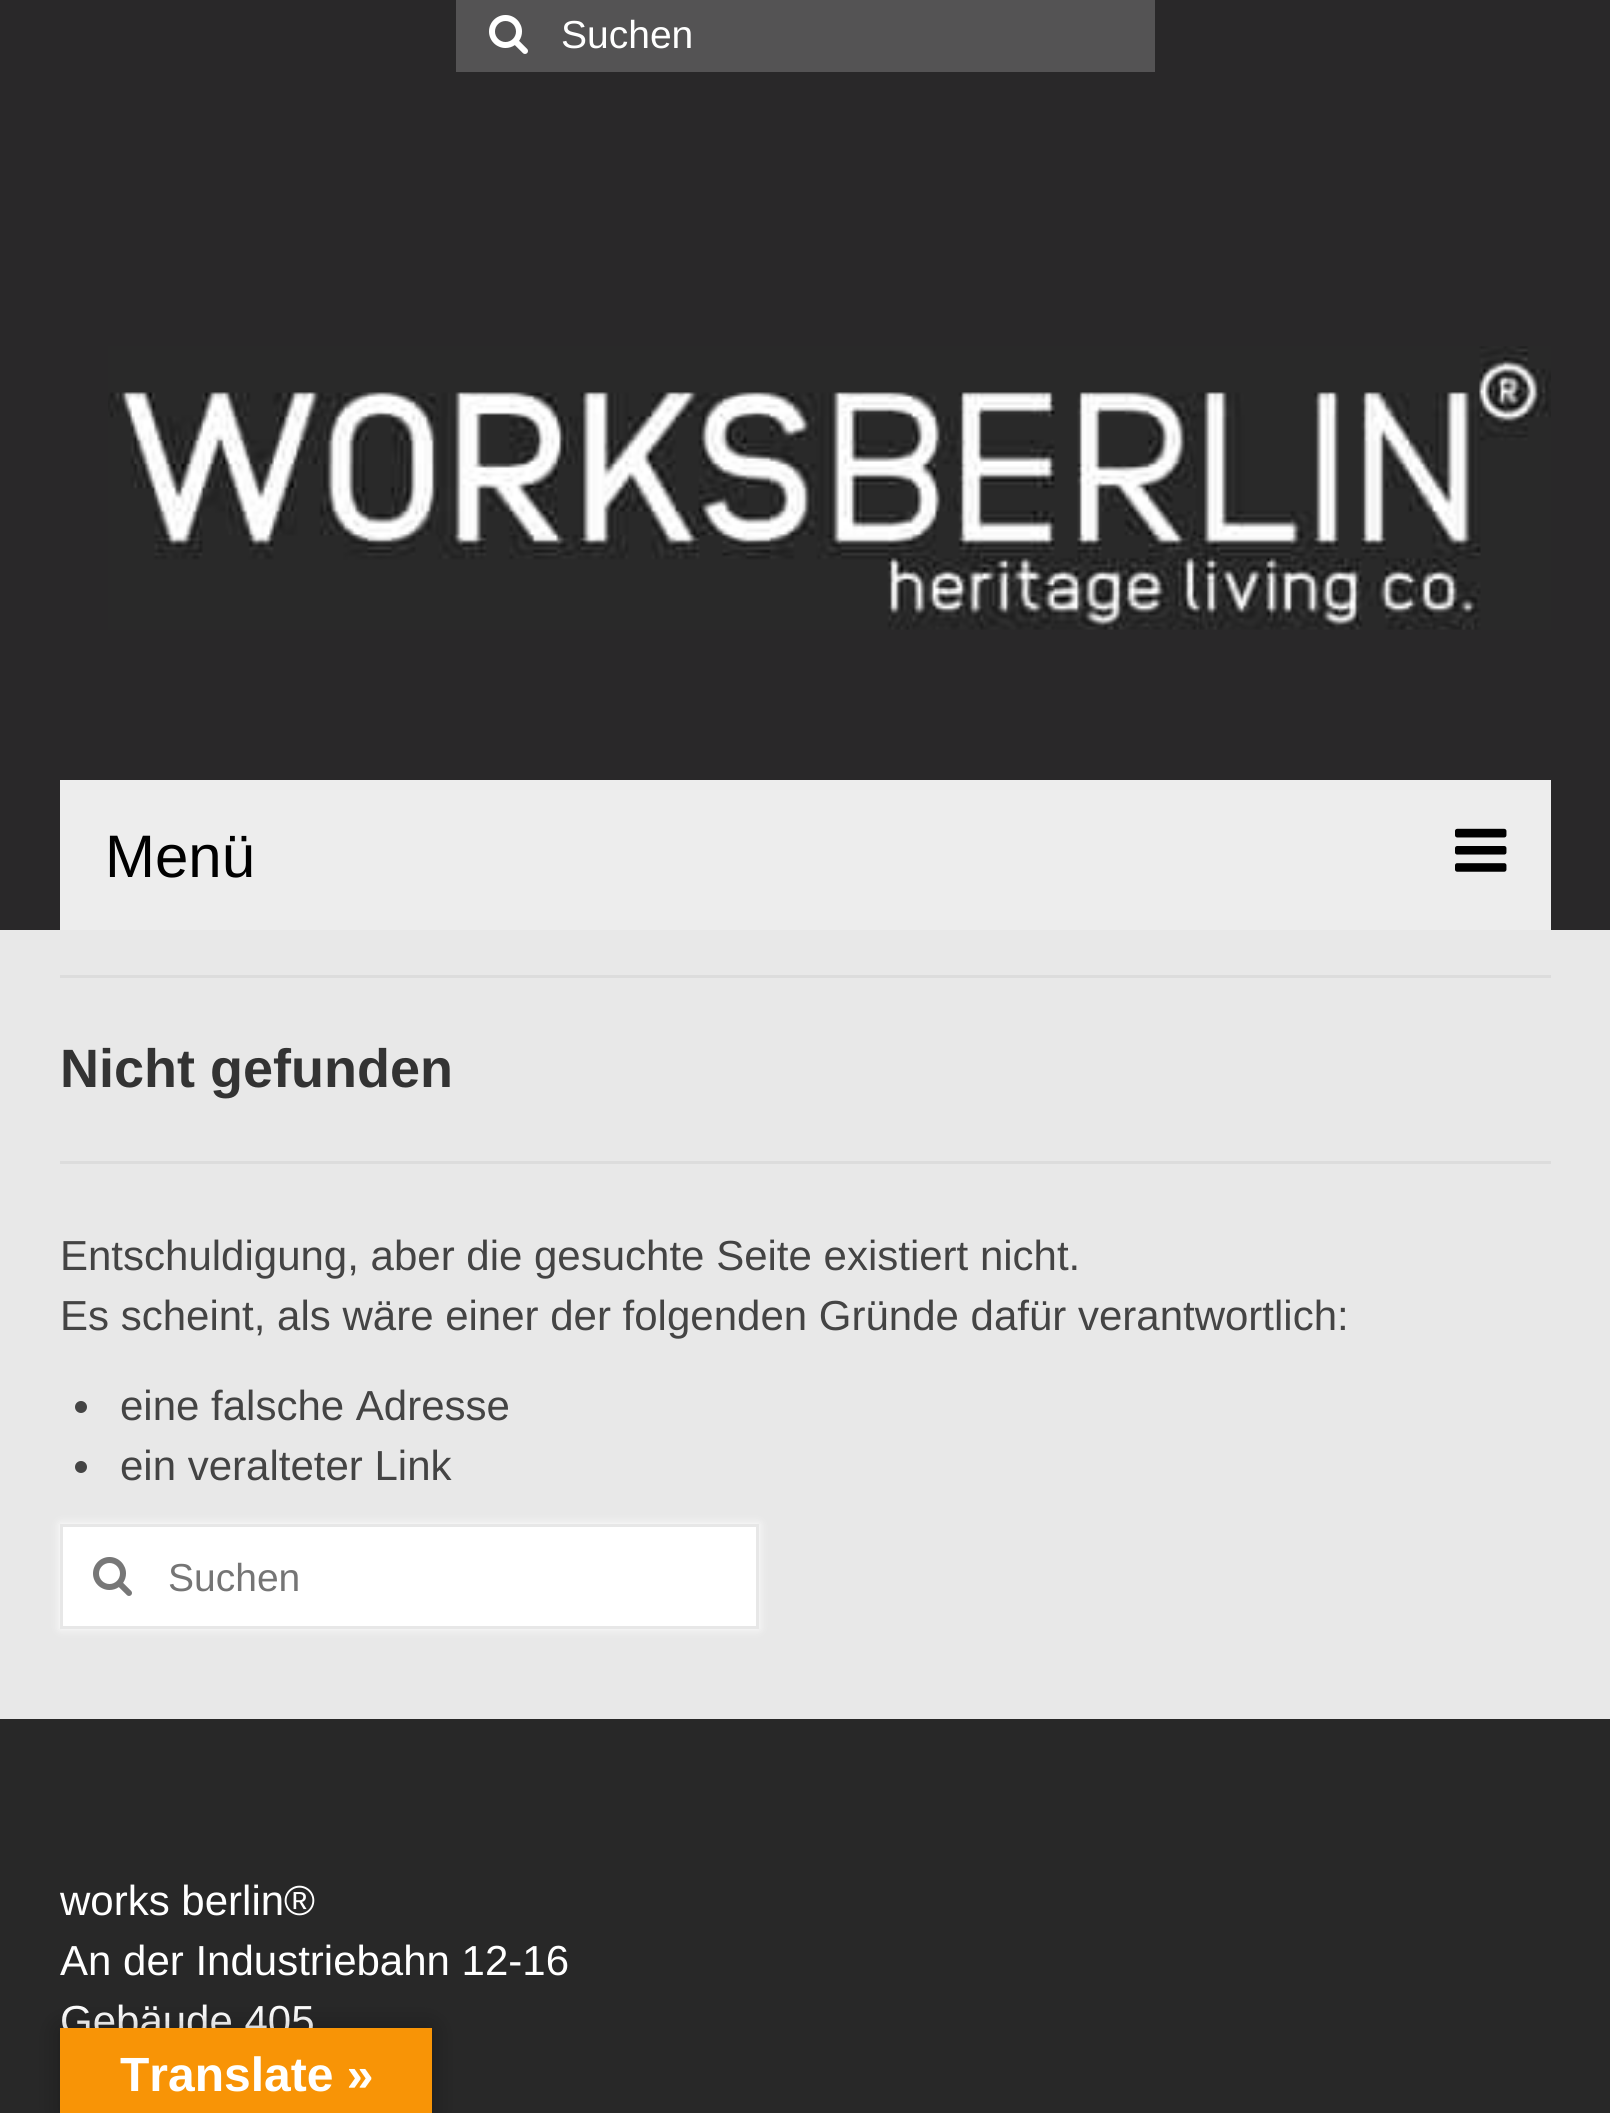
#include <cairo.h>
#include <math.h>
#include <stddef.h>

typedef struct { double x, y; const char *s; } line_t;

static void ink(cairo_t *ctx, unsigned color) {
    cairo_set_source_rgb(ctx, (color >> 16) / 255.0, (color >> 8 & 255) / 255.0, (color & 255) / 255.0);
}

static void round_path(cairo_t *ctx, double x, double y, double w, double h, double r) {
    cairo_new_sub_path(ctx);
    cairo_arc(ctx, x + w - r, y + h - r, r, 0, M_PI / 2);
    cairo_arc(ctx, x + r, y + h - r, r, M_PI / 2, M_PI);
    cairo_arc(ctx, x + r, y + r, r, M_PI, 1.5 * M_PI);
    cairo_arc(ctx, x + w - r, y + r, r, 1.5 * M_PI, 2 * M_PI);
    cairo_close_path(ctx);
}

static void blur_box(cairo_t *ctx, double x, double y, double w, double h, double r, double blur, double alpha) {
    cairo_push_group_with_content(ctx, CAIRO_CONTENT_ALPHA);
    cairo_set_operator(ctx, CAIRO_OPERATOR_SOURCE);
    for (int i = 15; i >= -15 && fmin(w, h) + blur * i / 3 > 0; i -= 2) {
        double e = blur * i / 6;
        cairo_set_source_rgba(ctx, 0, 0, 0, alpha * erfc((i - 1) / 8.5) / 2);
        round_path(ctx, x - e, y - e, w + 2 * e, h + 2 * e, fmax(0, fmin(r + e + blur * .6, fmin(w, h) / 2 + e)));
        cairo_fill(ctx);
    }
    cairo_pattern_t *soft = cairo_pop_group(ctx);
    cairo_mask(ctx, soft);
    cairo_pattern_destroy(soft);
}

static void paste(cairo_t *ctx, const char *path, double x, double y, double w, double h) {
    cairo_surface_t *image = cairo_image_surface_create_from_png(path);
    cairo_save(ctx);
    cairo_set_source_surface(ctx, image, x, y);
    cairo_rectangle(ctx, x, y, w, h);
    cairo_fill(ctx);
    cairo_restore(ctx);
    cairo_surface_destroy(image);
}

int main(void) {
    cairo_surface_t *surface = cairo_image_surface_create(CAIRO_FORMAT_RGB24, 1610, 2113);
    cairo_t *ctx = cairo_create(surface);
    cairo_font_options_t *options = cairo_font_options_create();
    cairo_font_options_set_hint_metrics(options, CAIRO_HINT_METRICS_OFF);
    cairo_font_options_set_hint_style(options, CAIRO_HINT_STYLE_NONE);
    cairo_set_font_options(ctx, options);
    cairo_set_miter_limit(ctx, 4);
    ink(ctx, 0xE8E8E8);
    cairo_paint(ctx);
    ink(ctx, 0x292829);
    cairo_rectangle(ctx, 0, 0, 1610, 930);
    cairo_fill(ctx);
    ink(ctx, 0x545354);
    cairo_rectangle(ctx, 456, 0, 699, 72);
    cairo_fill(ctx);
    paste(ctx, "media/1.png", 489, 15, 39, 39);
    cairo_select_font_face(ctx, "Liberation Sans", CAIRO_FONT_SLANT_NORMAL, CAIRO_FONT_WEIGHT_NORMAL);
    cairo_set_font_size(ctx, 39);
    ink(ctx, 0xFFFFFF);
    cairo_move_to(ctx, 561, 48);
    cairo_show_text(ctx, "Suchen");
    paste(ctx, "media/2.png", 108, 346, 1443, 284);
    ink(ctx, 0xEDEDED);
    cairo_rectangle(ctx, 60, 780, 1491, 150);
    cairo_fill(ctx);
    cairo_set_font_size(ctx, 60);
    ink(ctx, 0x000000);
    cairo_move_to(ctx, 105, 877);
    cairo_show_text(ctx, "Menü");
    paste(ctx, "media/3.png", 1455, 828, 52, 44);
    ink(ctx, 0xDCDCDC);
    cairo_rectangle(ctx, 60, 975, 1491, 3);
    cairo_fill(ctx);
    cairo_rectangle(ctx, 60, 1161, 1491, 3);
    cairo_fill(ctx);
    cairo_select_font_face(ctx, "Liberation Sans", CAIRO_FONT_SLANT_NORMAL, CAIRO_FONT_WEIGHT_BOLD);
    cairo_set_font_size(ctx, 54);
    ink(ctx, 0x333333);
    cairo_move_to(ctx, 60, 1087);
    cairo_show_text(ctx, "Nicht gefunden");
    cairo_select_font_face(ctx, "Liberation Sans", CAIRO_FONT_SLANT_NORMAL, CAIRO_FONT_WEIGHT_NORMAL);
    cairo_set_font_size(ctx, 42);
    ink(ctx, 0x444444);
    cairo_move_to(ctx, 60, 1270);
    cairo_show_text(ctx, "Entschuldigung, aber die gesuchte Seite existiert nicht.");
    cairo_move_to(ctx, 60, 1330);
    cairo_show_text(ctx, "Es scheint, als wäre einer der folgenden Gründe dafür verantwortlich:");
    cairo_new_path(ctx);
    cairo_arc(ctx, 81, 1407, 6, 0, 2 * M_PI);
    cairo_fill(ctx);
    cairo_move_to(ctx, 120, 1420);
    cairo_show_text(ctx, "eine falsche Adresse");
    cairo_new_path(ctx);
    cairo_arc(ctx, 81, 1467, 6, 0, 2 * M_PI);
    cairo_fill(ctx);
    cairo_move_to(ctx, 120, 1480);
    cairo_show_text(ctx, "ein veralteter Link");
    ink(ctx, 0xFFFFFF);
    blur_box(ctx, 60, 1524, 699, 105, 0, 4.5, 1);
    ink(ctx, 0xFFFFFF);
    cairo_rectangle(ctx, 61.5, 1525.5, 696, 102);
    cairo_fill_preserve(ctx);
    ink(ctx, 0xE7E7E7);
    cairo_set_line_width(ctx, 3);
    cairo_stroke(ctx);
    paste(ctx, "media/4.png", 93, 1557, 39, 39);
    cairo_set_font_size(ctx, 39);
    ink(ctx, 0x757575);
    cairo_move_to(ctx, 168, 1591);
    cairo_show_text(ctx, "Suchen");
    ink(ctx, 0x282828);
    cairo_rectangle(ctx, 0, 1719, 1610, 394);
    cairo_fill(ctx);
    cairo_set_font_size(ctx, 42);
    ink(ctx, 0xFFFFFF);
    {
        static const line_t items[] = {
            {60, 1915, "works berlin®"},
            {60, 1975, "An der Industriebahn 12-16"},
            {60, 2035, "Gebäude 405"},
        };
        for (size_t i = 0; i < sizeof items / sizeof *items; i++) {
            cairo_move_to(ctx, items[i].x, items[i].y);
            cairo_show_text(ctx, items[i].s);
        }
    }
    ink(ctx, 0x000000);
    blur_box(ctx, 60, 2028, 372, 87, 0, 13.5, 0.3);
    ink(ctx, 0xF89406);
    cairo_rectangle(ctx, 60, 2028, 372, 85);
    cairo_fill(ctx);
    cairo_select_font_face(ctx, "Liberation Sans", CAIRO_FONT_SLANT_NORMAL, CAIRO_FONT_WEIGHT_BOLD);
    cairo_set_font_size(ctx, 48);
    ink(ctx, 0xFFFFFF);
    cairo_move_to(ctx, 120, 2091);
    cairo_show_text(ctx, "Translate »");
    cairo_surface_write_to_png(surface, "image.png");
    cairo_font_options_destroy(options);
    cairo_destroy(ctx);
    cairo_surface_destroy(surface);
    return 0;
}
